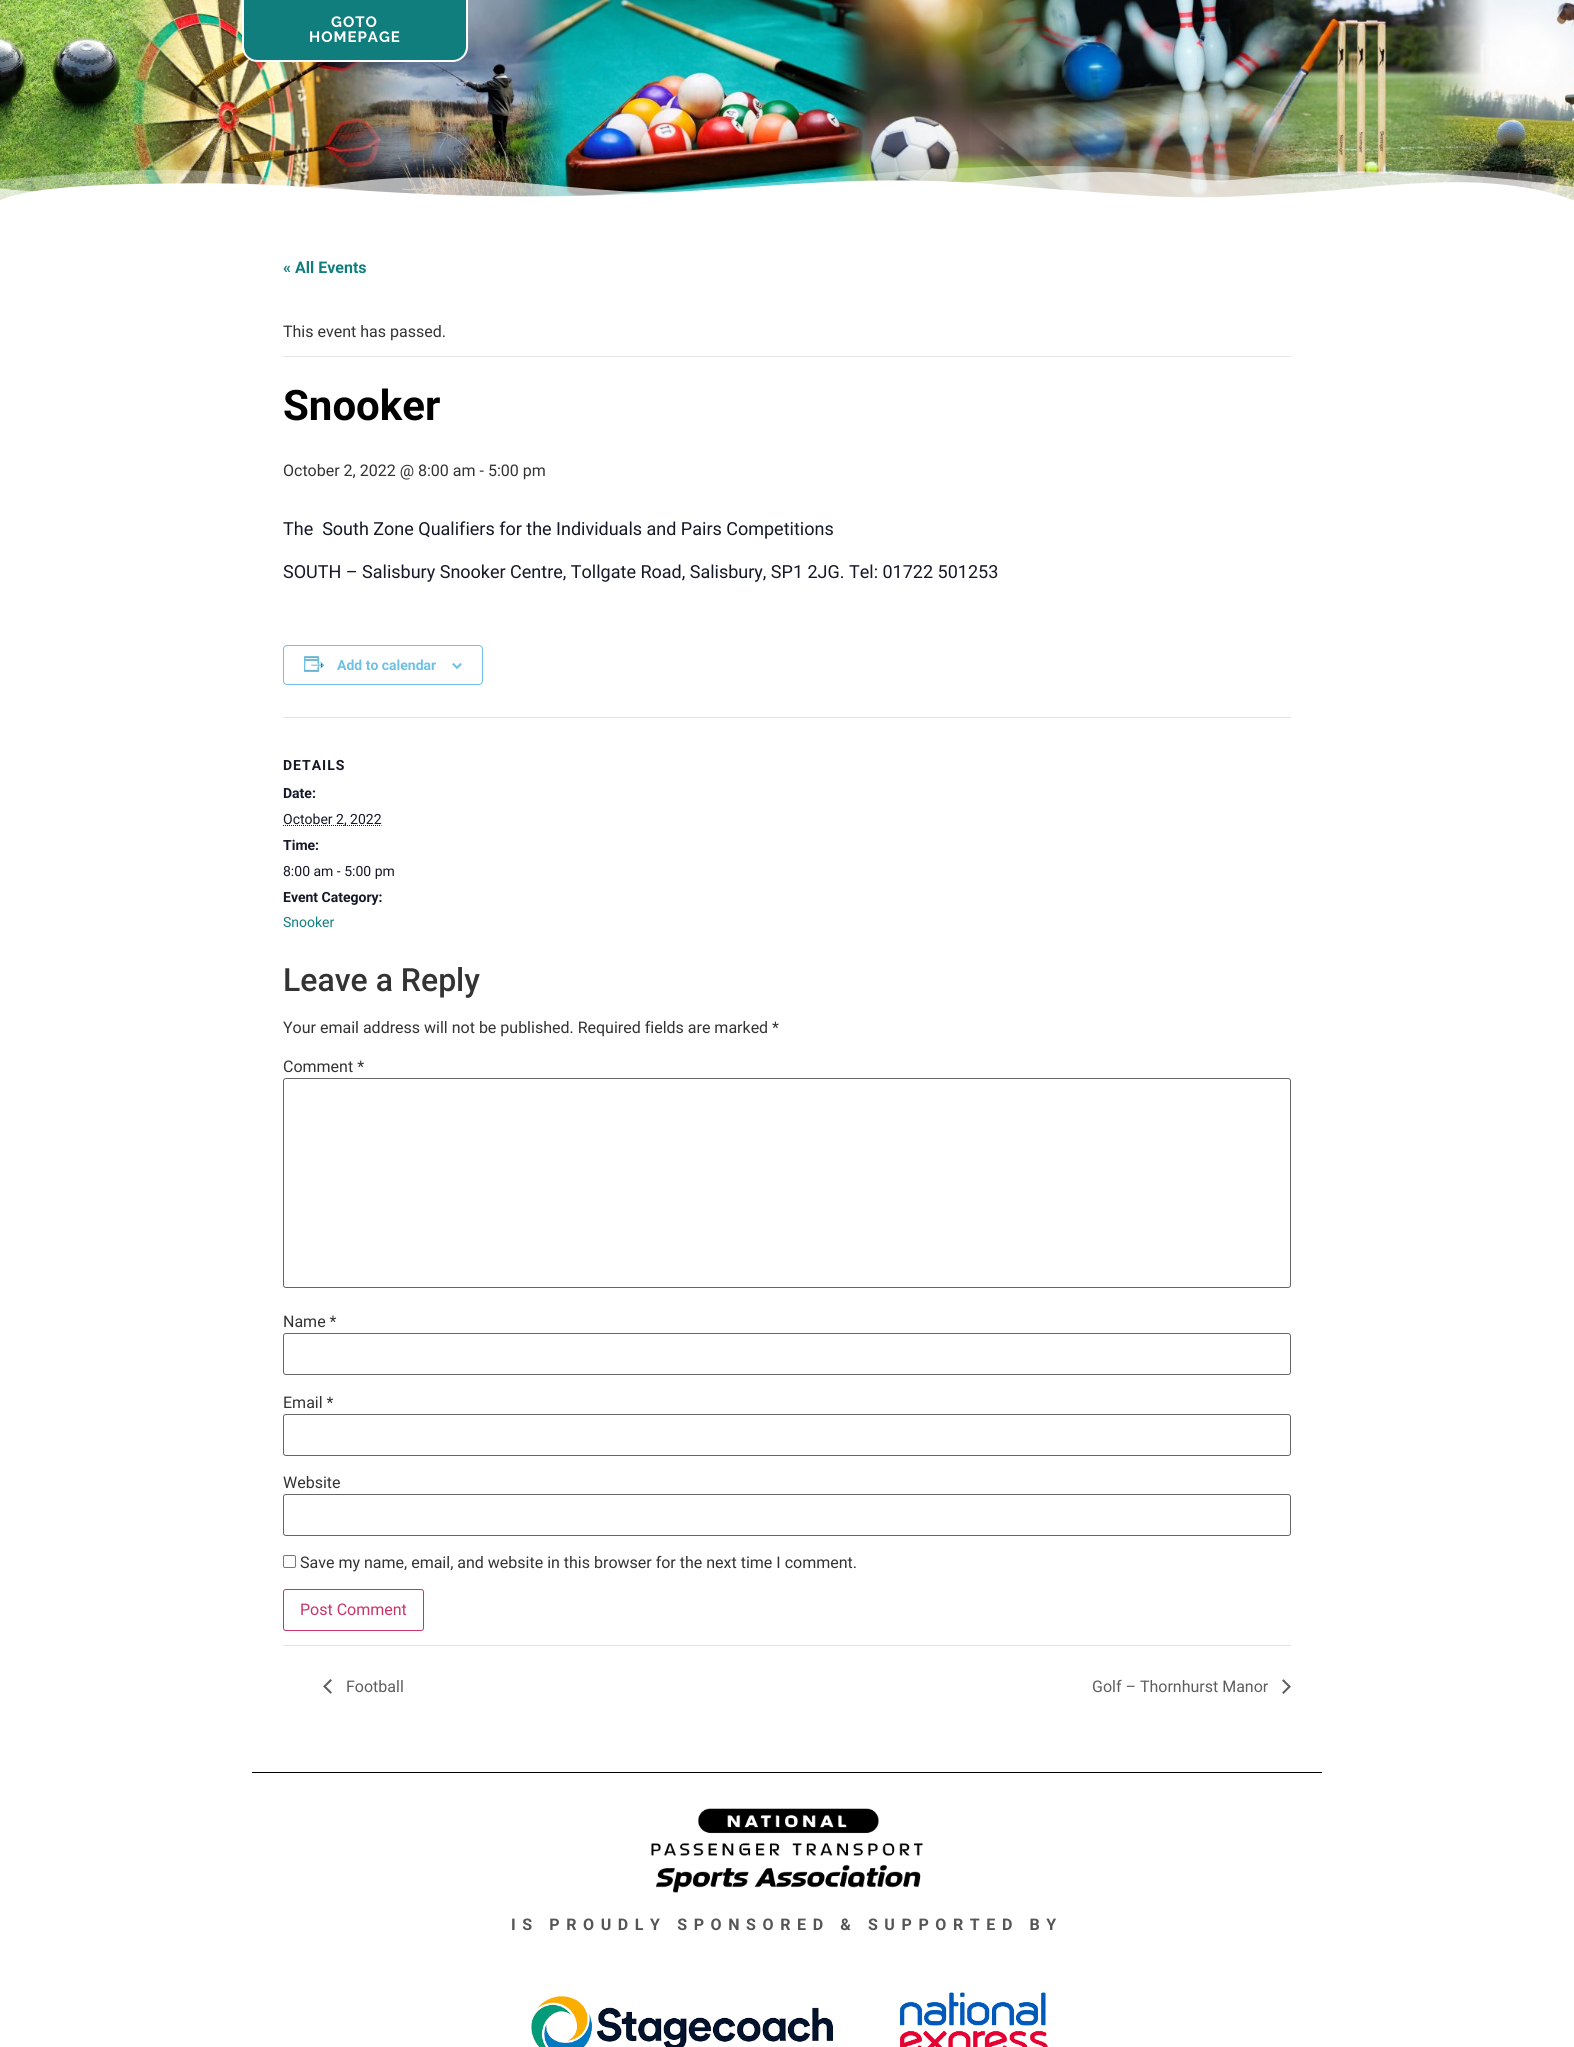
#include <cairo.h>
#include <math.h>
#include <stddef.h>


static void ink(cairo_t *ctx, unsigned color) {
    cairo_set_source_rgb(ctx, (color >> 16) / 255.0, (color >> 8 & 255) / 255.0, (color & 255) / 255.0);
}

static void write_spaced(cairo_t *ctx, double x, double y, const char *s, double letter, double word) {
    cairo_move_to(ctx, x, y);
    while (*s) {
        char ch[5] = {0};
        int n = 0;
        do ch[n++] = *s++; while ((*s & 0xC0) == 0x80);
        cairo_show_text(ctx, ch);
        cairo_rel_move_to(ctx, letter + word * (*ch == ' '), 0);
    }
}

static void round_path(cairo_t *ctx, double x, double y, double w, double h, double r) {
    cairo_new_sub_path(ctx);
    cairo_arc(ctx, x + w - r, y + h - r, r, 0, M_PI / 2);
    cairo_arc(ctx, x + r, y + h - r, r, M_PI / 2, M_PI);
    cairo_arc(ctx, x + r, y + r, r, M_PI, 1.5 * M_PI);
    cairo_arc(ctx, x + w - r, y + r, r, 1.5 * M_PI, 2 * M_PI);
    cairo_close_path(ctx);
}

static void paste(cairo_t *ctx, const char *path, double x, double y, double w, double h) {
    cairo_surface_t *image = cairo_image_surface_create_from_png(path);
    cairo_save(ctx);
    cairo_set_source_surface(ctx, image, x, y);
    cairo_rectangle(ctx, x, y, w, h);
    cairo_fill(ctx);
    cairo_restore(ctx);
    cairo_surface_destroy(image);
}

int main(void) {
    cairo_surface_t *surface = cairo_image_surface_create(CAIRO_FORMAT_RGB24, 1574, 2047);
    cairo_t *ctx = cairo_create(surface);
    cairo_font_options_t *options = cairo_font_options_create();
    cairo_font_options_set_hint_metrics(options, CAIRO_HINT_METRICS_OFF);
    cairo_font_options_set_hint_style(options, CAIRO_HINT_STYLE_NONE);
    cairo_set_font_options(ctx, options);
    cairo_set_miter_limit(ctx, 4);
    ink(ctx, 0xFFFFFF);
    cairo_paint(ctx);
    paste(ctx, "media/1.png", 0, 0, 1574, 200);
    ink(ctx, 0x117E7E);
    cairo_new_path(ctx);
    cairo_move_to(ctx, 244, 0);
    cairo_line_to(ctx, 466, 0);
    cairo_line_to(ctx, 466, 47);
    cairo_curve_to(ctx, 466, 54, 460, 60, 453, 60);
    cairo_line_to(ctx, 257, 60);
    cairo_curve_to(ctx, 250, 60, 244, 54, 244, 47);
    cairo_close_path(ctx);
    cairo_fill(ctx);
    ink(ctx, 0xFFFFFF);
    cairo_set_fill_rule(ctx, CAIRO_FILL_RULE_EVEN_ODD);
    cairo_new_path(ctx);
    cairo_move_to(ctx, 242, 0);
    cairo_line_to(ctx, 468, 0);
    cairo_line_to(ctx, 468, 47);
    cairo_curve_to(ctx, 468, 55, 461, 62, 453, 62);
    cairo_line_to(ctx, 257, 62);
    cairo_curve_to(ctx, 249, 62, 242, 55, 242, 47);
    cairo_close_path(ctx);
    cairo_move_to(ctx, 244, 0);
    cairo_line_to(ctx, 466, 0);
    cairo_line_to(ctx, 466, 47);
    cairo_curve_to(ctx, 466, 54, 460, 60, 453, 60);
    cairo_line_to(ctx, 257, 60);
    cairo_curve_to(ctx, 250, 60, 244, 54, 244, 47);
    cairo_close_path(ctx);
    cairo_fill(ctx);
    cairo_select_font_face(ctx, "Raleway", CAIRO_FONT_SLANT_NORMAL, CAIRO_FONT_WEIGHT_BOLD);
    cairo_set_font_size(ctx, 15);
    write_spaced(ctx, 331, 27, "GOTO", 1, 0);
    write_spaced(ctx, 309, 42, "HOMEPAGE", 1, 0);
    paste(ctx, "media/2.png", 0, 166, 1574, 34);
    cairo_select_font_face(ctx, "Roboto", CAIRO_FONT_SLANT_NORMAL, CAIRO_FONT_WEIGHT_BOLD);
    cairo_set_font_size(ctx, 16);
    ink(ctx, 0x117E7E);
    cairo_move_to(ctx, 283, 273);
    cairo_show_text(ctx, "« All Events");
    ink(ctx, 0xE4E4E4);
    cairo_rectangle(ctx, 283, 356, 1008, 1);
    cairo_fill(ctx);
    cairo_select_font_face(ctx, "Roboto", CAIRO_FONT_SLANT_NORMAL, CAIRO_FONT_WEIGHT_NORMAL);
    ink(ctx, 0x333333);
    cairo_move_to(ctx, 283, 337);
    cairo_show_text(ctx, "This event has passed.");
    cairo_select_font_face(ctx, "Roboto", CAIRO_FONT_SLANT_NORMAL, CAIRO_FONT_WEIGHT_BOLD);
    cairo_set_font_size(ctx, 42);
    ink(ctx, 0x000000);
    cairo_move_to(ctx, 283, 420);
    cairo_show_text(ctx, "Snooker");
    cairo_select_font_face(ctx, "Roboto", CAIRO_FONT_SLANT_NORMAL, CAIRO_FONT_WEIGHT_NORMAL);
    cairo_set_font_size(ctx, 16);
    ink(ctx, 0x333333);
    cairo_move_to(ctx, 283, 476);
    cairo_show_text(ctx, "October 2, 2022 @ 8:00 am - 5:00 pm");
    cairo_set_font_size(ctx, 18);
    ink(ctx, 0x141827);
    cairo_move_to(ctx, 283, 535);
    cairo_show_text(ctx, "The  South Zone Qualifiers for the Individuals and Pairs Competitions");
    cairo_move_to(ctx, 283, 578);
    cairo_show_text(ctx, "SOUTH – Salisbury Snooker Centre, Tollgate Road, Salisbury, SP1 2JG. Tel: 01722 501253");
    round_path(ctx, 283.5, 645.5, 199, 39, 3.5);
    ink(ctx, 0x6EC1E4);
    cairo_set_line_width(ctx, 1);
    cairo_stroke(ctx);
    paste(ctx, "media/3.png", 304, 656, 20, 16);
    cairo_select_font_face(ctx, "Roboto", CAIRO_FONT_SLANT_NORMAL, CAIRO_FONT_WEIGHT_BOLD);
    cairo_set_font_size(ctx, 14);
    cairo_move_to(ctx, 337, 670);
    cairo_show_text(ctx, "Add to calendar");
    paste(ctx, "media/4.png", 452, 663, 10, 6);
    ink(ctx, 0xE4E4E4);
    cairo_rectangle(ctx, 283, 717, 1008, 1);
    cairo_fill(ctx);
    ink(ctx, 0x141827);
    write_spaced(ctx, 283, 770, "DETAILS", 1, 0);
    cairo_move_to(ctx, 283, 798);
    cairo_show_text(ctx, "Date:");
    cairo_new_path(ctx);
    cairo_move_to(ctx, 283, 825.5);
    cairo_line_to(ctx, 381.5, 825.5);
    cairo_set_dash(ctx, (double[]){1, 1}, 2, 0);
    cairo_stroke(ctx);
    cairo_select_font_face(ctx, "Roboto", CAIRO_FONT_SLANT_NORMAL, CAIRO_FONT_WEIGHT_NORMAL);
    cairo_move_to(ctx, 283, 824);
    cairo_show_text(ctx, "October 2, 2022");
    cairo_select_font_face(ctx, "Roboto", CAIRO_FONT_SLANT_NORMAL, CAIRO_FONT_WEIGHT_BOLD);
    cairo_move_to(ctx, 283, 850);
    cairo_show_text(ctx, "Time:");
    cairo_select_font_face(ctx, "Roboto", CAIRO_FONT_SLANT_NORMAL, CAIRO_FONT_WEIGHT_NORMAL);
    cairo_move_to(ctx, 283, 876);
    cairo_show_text(ctx, "8:00 am - 5:00 pm");
    cairo_select_font_face(ctx, "Roboto", CAIRO_FONT_SLANT_NORMAL, CAIRO_FONT_WEIGHT_BOLD);
    cairo_move_to(ctx, 283, 902);
    cairo_show_text(ctx, "Event Category:");
    cairo_select_font_face(ctx, "Roboto", CAIRO_FONT_SLANT_NORMAL, CAIRO_FONT_WEIGHT_NORMAL);
    ink(ctx, 0x117E7E);
    cairo_move_to(ctx, 283, 927);
    cairo_show_text(ctx, "Snooker");
    cairo_select_font_face(ctx, "Roboto Medium", CAIRO_FONT_SLANT_NORMAL, CAIRO_FONT_WEIGHT_NORMAL);
    cairo_set_font_size(ctx, 32);
    ink(ctx, 0x333333);
    cairo_move_to(ctx, 283, 991);
    cairo_show_text(ctx, "Leave a Reply");
    cairo_select_font_face(ctx, "Roboto", CAIRO_FONT_SLANT_NORMAL, CAIRO_FONT_WEIGHT_NORMAL);
    cairo_set_font_size(ctx, 16);
    cairo_move_to(ctx, 283, 1033);
    cairo_show_text(ctx, "Your email address will not be published. Required fields are marked *");
    cairo_move_to(ctx, 283, 1072);
    cairo_show_text(ctx, "Comment *");
    round_path(ctx, 283.5, 1078.5, 1007, 209, 2.5);
    ink(ctx, 0x666666);
    cairo_set_dash(ctx, NULL, 0, 0);
    cairo_stroke(ctx);
    ink(ctx, 0x333333);
    cairo_move_to(ctx, 283, 1327);
    cairo_show_text(ctx, "Name *");
    round_path(ctx, 283.5, 1333.5, 1007, 41, 2.5);
    ink(ctx, 0x666666);
    cairo_stroke(ctx);
    ink(ctx, 0x333333);
    cairo_move_to(ctx, 283, 1408);
    cairo_show_text(ctx, "Email *");
    round_path(ctx, 283.5, 1414.5, 1007, 41, 2.5);
    ink(ctx, 0x666666);
    cairo_stroke(ctx);
    ink(ctx, 0x333333);
    cairo_move_to(ctx, 283, 1488);
    cairo_show_text(ctx, "Website");
    round_path(ctx, 283.5, 1494.5, 1007, 41, 2.5);
    ink(ctx, 0x666666);
    cairo_stroke(ctx);
    round_path(ctx, 283.5, 1555.5, 12, 12, 1.5);
    ink(ctx, 0x767676);
    cairo_stroke(ctx);
    ink(ctx, 0x333333);
    cairo_move_to(ctx, 300, 1568);
    cairo_show_text(ctx, "Save my name, email, and website in this browser for the next time I comment.");
    round_path(ctx, 283.5, 1589.5, 140, 41, 2.5);
    ink(ctx, 0xCC3366);
    cairo_stroke(ctx);
    cairo_move_to(ctx, 300, 1615);
    cairo_show_text(ctx, "Post Comment");
    ink(ctx, 0xE4E4E4);
    cairo_rectangle(ctx, 283, 1645, 1008, 1);
    cairo_fill(ctx);
    paste(ctx, "media/5.png", 323, 1679, 9, 15);
    ink(ctx, 0x5D5D5D);
    cairo_move_to(ctx, 346, 1692);
    cairo_show_text(ctx, "Football");
    cairo_move_to(ctx, 1092, 1692);
    cairo_show_text(ctx, "Golf – Thornhurst Manor");
    paste(ctx, "media/6.png", 1282, 1679, 9, 15);
    ink(ctx, 0x000000);
    cairo_rectangle(ctx, 252, 1772, 1070, 1);
    cairo_fill(ctx);
    paste(ctx, "media/7.png", 651, 1808, 272, 85);
    cairo_select_font_face(ctx, "Roboto", CAIRO_FONT_SLANT_NORMAL, CAIRO_FONT_WEIGHT_BOLD);
    ink(ctx, 0x555555);
    write_spaced(ctx, 511, 1930, "IS PROUDLY SPONSORED & SUPPORTED BY", 6.6, 0);
    paste(ctx, "media/8.png", 531, 1992, 517, 55);
    cairo_surface_write_to_png(surface, "image.png");
    cairo_font_options_destroy(options);
    cairo_destroy(ctx);
    cairo_surface_destroy(surface);
    return 0;
}
